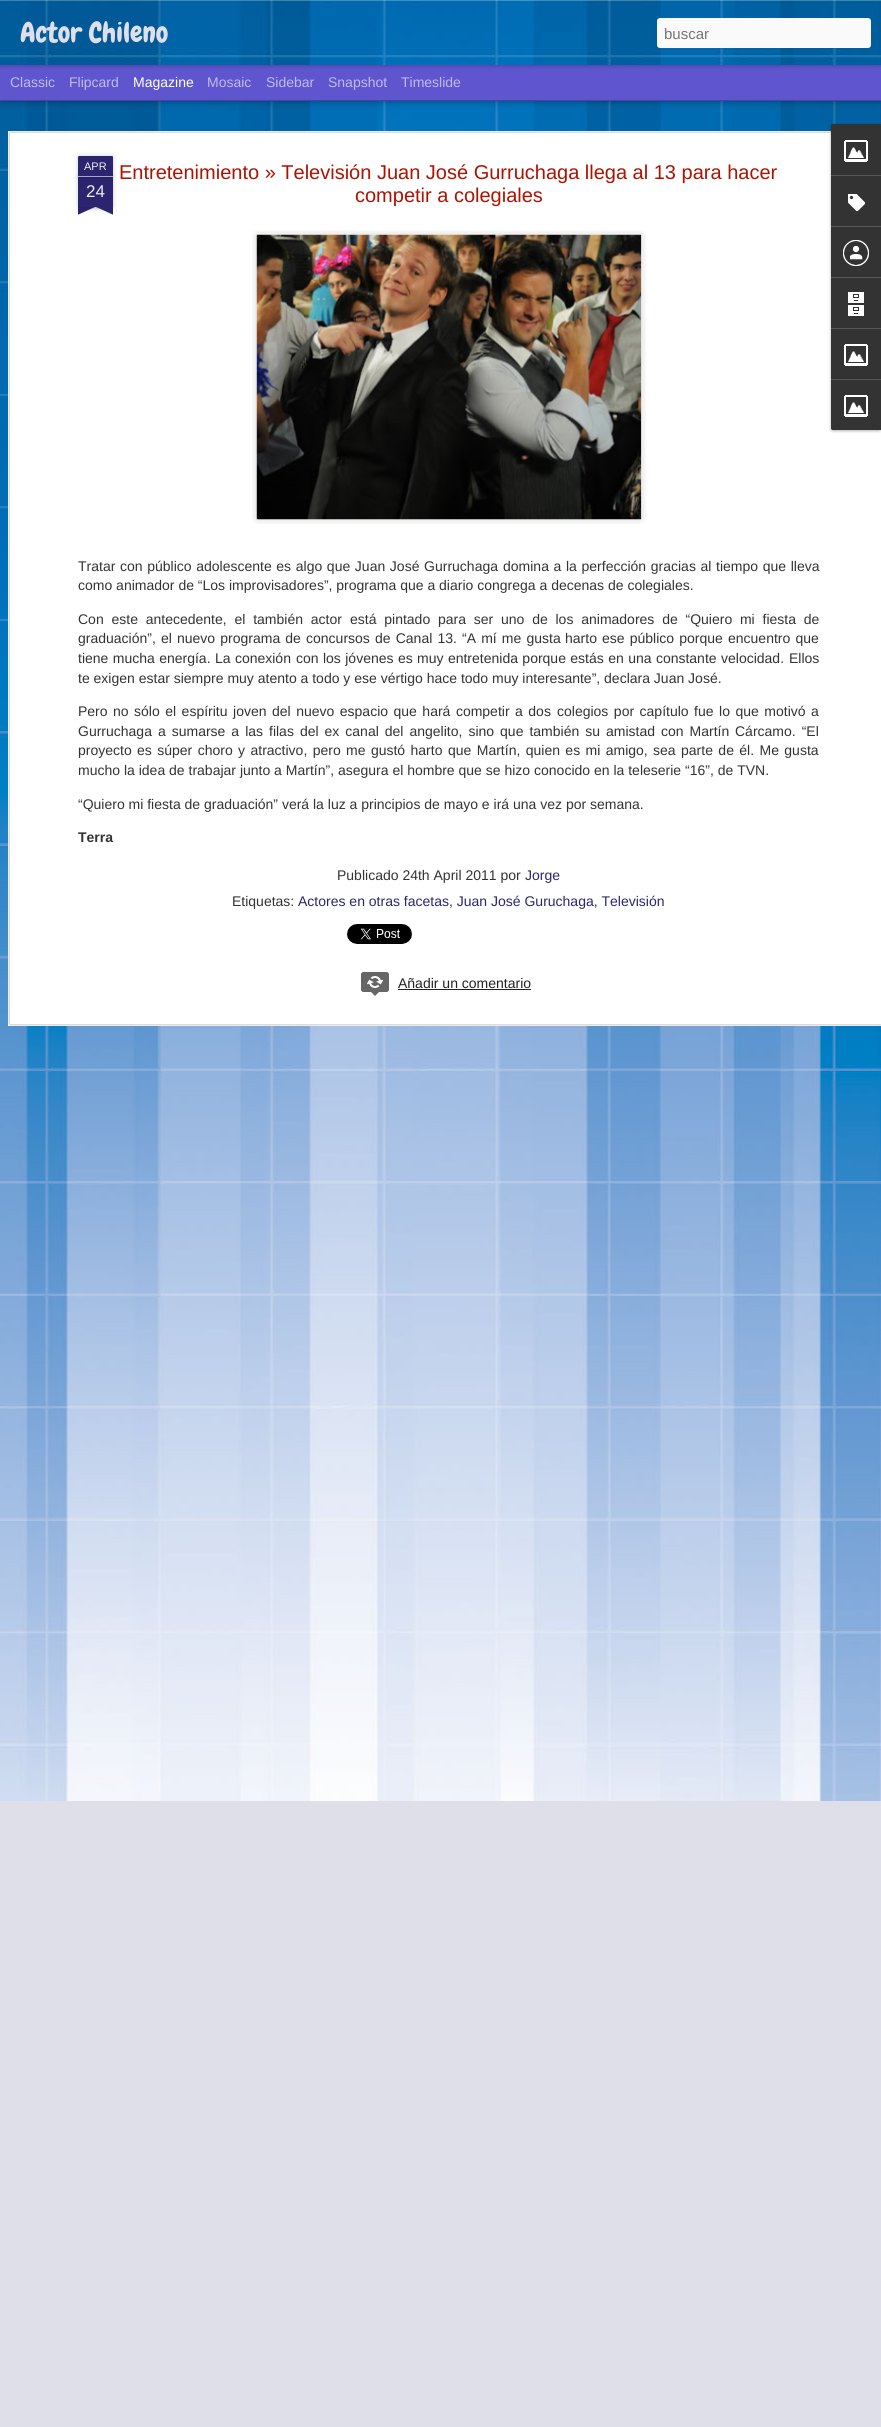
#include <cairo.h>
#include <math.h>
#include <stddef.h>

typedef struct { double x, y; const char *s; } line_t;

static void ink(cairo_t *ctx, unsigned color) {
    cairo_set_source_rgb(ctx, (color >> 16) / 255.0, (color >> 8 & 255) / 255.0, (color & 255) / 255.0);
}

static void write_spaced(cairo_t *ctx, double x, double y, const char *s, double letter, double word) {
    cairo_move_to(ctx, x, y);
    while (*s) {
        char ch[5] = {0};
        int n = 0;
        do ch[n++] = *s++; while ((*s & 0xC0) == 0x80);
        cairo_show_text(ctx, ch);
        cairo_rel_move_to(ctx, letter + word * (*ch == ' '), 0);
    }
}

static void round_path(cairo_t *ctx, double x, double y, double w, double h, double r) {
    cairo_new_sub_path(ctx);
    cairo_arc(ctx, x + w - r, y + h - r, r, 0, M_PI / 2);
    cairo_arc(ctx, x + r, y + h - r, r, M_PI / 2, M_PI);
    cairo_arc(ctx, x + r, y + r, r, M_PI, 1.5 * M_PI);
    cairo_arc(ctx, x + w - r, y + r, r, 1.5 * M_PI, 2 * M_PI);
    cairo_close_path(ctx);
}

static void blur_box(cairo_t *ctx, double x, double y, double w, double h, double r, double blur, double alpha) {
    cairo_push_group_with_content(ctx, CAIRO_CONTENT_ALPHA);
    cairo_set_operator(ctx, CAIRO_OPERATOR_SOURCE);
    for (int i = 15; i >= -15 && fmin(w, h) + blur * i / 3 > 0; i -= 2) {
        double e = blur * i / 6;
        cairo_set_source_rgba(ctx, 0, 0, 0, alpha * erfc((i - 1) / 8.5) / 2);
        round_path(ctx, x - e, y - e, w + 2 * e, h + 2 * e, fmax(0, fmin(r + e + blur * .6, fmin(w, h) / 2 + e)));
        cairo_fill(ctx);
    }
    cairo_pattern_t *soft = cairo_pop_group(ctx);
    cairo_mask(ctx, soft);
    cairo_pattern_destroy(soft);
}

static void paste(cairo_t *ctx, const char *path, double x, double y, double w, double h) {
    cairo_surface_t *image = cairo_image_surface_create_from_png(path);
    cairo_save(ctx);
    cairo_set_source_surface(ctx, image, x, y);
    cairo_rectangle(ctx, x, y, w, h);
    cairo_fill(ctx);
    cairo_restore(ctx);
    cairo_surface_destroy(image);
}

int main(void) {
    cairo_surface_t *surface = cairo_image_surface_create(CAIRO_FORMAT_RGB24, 881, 2427);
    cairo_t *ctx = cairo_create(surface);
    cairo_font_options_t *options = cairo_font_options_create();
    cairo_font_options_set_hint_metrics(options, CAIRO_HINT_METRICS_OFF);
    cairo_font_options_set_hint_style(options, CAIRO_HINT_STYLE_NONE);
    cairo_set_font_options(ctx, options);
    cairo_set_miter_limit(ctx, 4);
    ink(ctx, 0x5F55CE);
    cairo_paint(ctx);
    paste(ctx, "media/2.png", 0, 101, 881, 1700);
    ink(ctx, 0x000000);
    blur_box(ctx, 0, 65, 881, 35, 0, 4, 0.5);
    ink(ctx, 0x5F55CE);
    cairo_rectangle(ctx, 0, 65, 881, 35);
    cairo_fill(ctx);
    ink(ctx, 0x000000);
    blur_box(ctx, 0, 0, 881, 65, 0, 2.5, 0.3);
    paste(ctx, "media/1.png", 0, 0, 881, 65);
    cairo_select_font_face(ctx, "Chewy", CAIRO_FONT_SLANT_NORMAL, CAIRO_FONT_WEIGHT_NORMAL);
    cairo_set_font_size(ctx, 28);
    ink(ctx, 0xDFDFEA);
    cairo_move_to(ctx, 20, 42);
    cairo_show_text(ctx, "Actor Chileno");
    ink(ctx, 0xFAFAFA);
    round_path(ctx, 657, 18, 214, 30, 3);
    cairo_fill(ctx);
    cairo_select_font_face(ctx, "Liberation Sans", CAIRO_FONT_SLANT_NORMAL, CAIRO_FONT_WEIGHT_NORMAL);
    cairo_set_font_size(ctx, 15);
    ink(ctx, 0x757575);
    cairo_move_to(ctx, 664, 39);
    cairo_show_text(ctx, "buscar");
    cairo_set_font_size(ctx, 14);
    ink(ctx, 0xBFBBEB);
    cairo_move_to(ctx, 10, 87);
    cairo_show_text(ctx, "Classic");
    cairo_move_to(ctx, 69, 87);
    cairo_show_text(ctx, "Flipcard");
    ink(ctx, 0xFFFFFF);
    cairo_move_to(ctx, 133, 87);
    cairo_show_text(ctx, "Magazine");
    ink(ctx, 0xBFBBEB);
    {
        static const line_t items[] = {
            {207, 87, "Mosaic"},
            {266, 87, "Sidebar"},
            {328, 87, "Snapshot"},
            {401, 87, "Timeslide"},
        };
        for (size_t i = 0; i < sizeof items / sizeof *items; i++) {
            cairo_move_to(ctx, items[i].x, items[i].y);
            cairo_show_text(ctx, items[i].s);
        }
    }
    ink(ctx, 0xDFDFEA);
    cairo_rectangle(ctx, 0, 1801, 881, 626);
    cairo_fill(ctx);
    ink(ctx, 0xFFFFFF);
    cairo_rectangle(ctx, 8, 131, 873, 895);
    cairo_fill(ctx);
    paste(ctx, "media/3.png", 8, 131, 873, 895);
    ink(ctx, 0x000000);
    blur_box(ctx, 78, 177, 35, 30, 0, 2.5, 0.2);
    ink(ctx, 0x2B256F);
    cairo_rectangle(ctx, 78, 177, 35, 30);
    cairo_fill(ctx);
    ink(ctx, 0x000000);
    blur_box(ctx, 78, 156, 35, 21, 1, 2.5, 0.2);
    ink(ctx, 0x2B256F);
    cairo_new_path(ctx);
    cairo_move_to(ctx, 79, 156);
    cairo_line_to(ctx, 112, 156);
    cairo_curve_to(ctx, 112.5, 156, 113, 156.5, 113, 157);
    cairo_line_to(ctx, 113, 177);
    cairo_line_to(ctx, 78, 177);
    cairo_line_to(ctx, 78, 157);
    cairo_curve_to(ctx, 78, 156.5, 78.5, 156, 79, 156);
    cairo_close_path(ctx);
    cairo_fill(ctx);
    ink(ctx, 0xAAA8C5);
    cairo_rectangle(ctx, 78, 176, 35, 1);
    cairo_fill(ctx);
    cairo_set_font_size(ctx, 11);
    ink(ctx, 0xEEEEEE);
    cairo_move_to(ctx, 84, 170);
    cairo_show_text(ctx, "APR");
    cairo_set_font_size(ctx, 17);
    cairo_move_to(ctx, 86, 197);
    cairo_show_text(ctx, "24");
    cairo_save(ctx);
    cairo_rectangle(ctx, 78, 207, 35, 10);
    cairo_clip(ctx);
    ink(ctx, 0x000000);
    blur_box(ctx, 69, 197, 50, 10, 0, 2.5, 0.2);
    cairo_restore(ctx);
    cairo_save(ctx);
    cairo_rectangle(ctx, 78, 207, 35, 10);
    cairo_clip(ctx);
    ink(ctx, 0x2B256F);
    cairo_new_path(ctx);
    cairo_move_to(ctx, 69, 208);
    cairo_line_to(ctx, 115, 187);
    cairo_line_to(ctx, 119, 196);
    cairo_line_to(ctx, 73, 217);
    cairo_close_path(ctx);
    cairo_fill(ctx);
    cairo_restore(ctx);
    cairo_save(ctx);
    cairo_rectangle(ctx, 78, 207, 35, 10);
    cairo_clip(ctx);
    ink(ctx, 0x000000);
    blur_box(ctx, 72, 197, 50, 10, 0, 2.5, 0.2);
    cairo_restore(ctx);
    cairo_save(ctx);
    cairo_rectangle(ctx, 78, 207, 35, 10);
    cairo_clip(ctx);
    ink(ctx, 0x2B256F);
    cairo_new_path(ctx);
    cairo_move_to(ctx, 76, 187);
    cairo_line_to(ctx, 122, 208);
    cairo_line_to(ctx, 118, 217);
    cairo_line_to(ctx, 72, 196);
    cairo_close_path(ctx);
    cairo_fill(ctx);
    cairo_restore(ctx);
    cairo_set_font_size(ctx, 20);
    ink(ctx, 0xAD1300);
    cairo_move_to(ctx, 119, 179);
    cairo_show_text(ctx, "Entretenimiento » Televisión Juan José Gurruchaga llega al 13 para hacer");
    cairo_move_to(ctx, 355, 202);
    cairo_show_text(ctx, "competir a colegiales");
    paste(ctx, "media/4.png", 252, 230, 394, 294);
    paste(ctx, "media/5.png", 256, 234, 386, 286);
    cairo_set_font_size(ctx, 14);
    ink(ctx, 0x333333);
    write_spaced(ctx, 78, 571, "Tratar con público adolescente es algo que Juan José Gurruchaga", 0, 0.75);
    write_spaced(ctx, 503, 571, "domina a la perfección gracias al tiempo que lleva", 0, 0.75);
    cairo_move_to(ctx, 78, 590);
    cairo_show_text(ctx, "como animador de “Los improvisadores”, programa que a diario congrega a decenas de colegiales.");
    write_spaced(ctx, 78, 624, "Con este antecedente, el también actor", 0, 3.9);
    write_spaced(ctx, 350, 624, "está pintado para ser uno de los animadores de “Quiero mi fiesta de", 0, 3.9);
    write_spaced(ctx, 78, 643, "graduación”, el nuevo programa de concursos de Canal 13. “A mí me gusta", 0, 1.25);
    write_spaced(ctx, 565, 643, "harto ese público porque encuentro que", 0, 1.25);
    write_spaced(ctx, 78, 663, "tiene mucha energía. La conexión", 0, 0.5);
    write_spaced(ctx, 296, 663, "con los jóvenes es muy entretenida porque estás en una constante", 0, 0.5);
    write_spaced(ctx, 721, 663, "velocidad. Ellos", 0, 1);
    cairo_move_to(ctx, 78, 683);
    cairo_show_text(ctx, "te exigen estar siempre muy atento a todo y ese vértigo hace todo muy interesante”, declara Juan José.");
    cairo_move_to(ctx, 78, 716);
    cairo_show_text(ctx, "Pero");
    write_spaced(ctx, 113, 716, "no sólo el espíritu joven del nuevo espacio que hará competir a dos", 0, 1.6);
    write_spaced(ctx, 557, 716, "colegios por capítulo fue lo que motivó a", 0, 1.6);
    {
        static const line_t items[] = {
            {78, 736, "Gurruchaga a sumarse a las"},
            {269, 736, "filas del ex canal del angelito, sino que también su amistad con Martín"},
            {735, 736, "Cárcamo. “El"},
        };
        for (size_t i = 0; i < sizeof items / sizeof *items; i++) {
            write_spaced(ctx, items[i].x, items[i].y, items[i].s, 0, 2.1);
        }
    }
    write_spaced(ctx, 78, 755, "proyecto es súper choro y atractivo, pero me gustó harto", 0, 1.5);
    write_spaced(ctx, 448, 755, "que Martín, quien es mi amigo, sea parte de él. Me gusta", 0, 1.5);
    cairo_move_to(ctx, 78, 775);
    cairo_show_text(ctx, "mucho la idea de trabajar junto a Martín”, asegura el hombre que se hizo conocido en la teleserie “16”, de TVN.");
    cairo_move_to(ctx, 78, 809);
    cairo_show_text(ctx, "“Quiero mi fiesta de graduación” verá la luz a principios de mayo e irá una vez por semana.");
    cairo_select_font_face(ctx, "Liberation Sans", CAIRO_FONT_SLANT_NORMAL, CAIRO_FONT_WEIGHT_BOLD);
    cairo_move_to(ctx, 78, 842);
    cairo_show_text(ctx, "Terra");
    cairo_select_font_face(ctx, "Liberation Sans", CAIRO_FONT_SLANT_NORMAL, CAIRO_FONT_WEIGHT_NORMAL);
    cairo_move_to(ctx, 337, 880);
    cairo_show_text(ctx, "Publicado 24th April 2011 por");
    ink(ctx, 0x2B256F);
    cairo_move_to(ctx, 525, 880);
    cairo_show_text(ctx, "Jorge");
    ink(ctx, 0x333333);
    cairo_move_to(ctx, 232, 906);
    cairo_show_text(ctx, "Etiquetas:");
    ink(ctx, 0x2B256F);
    cairo_move_to(ctx, 298, 906);
    cairo_show_text(ctx, "Actores en otras facetas, Juan José Guruchaga, Televisión");
    paste(ctx, "media/6.png", 347, 924, 65, 20);
    ink(ctx, 0x666666);
    round_path(ctx, 361, 972, 28, 20, 3);
    cairo_fill(ctx);
    paste(ctx, "media/7.png", 367, 976, 16, 12);
    round_path(ctx, 361.5, 972.5, 27, 19, 2.5);
    cairo_set_line_width(ctx, 1);
    cairo_stroke(ctx);
    cairo_new_path(ctx);
    cairo_move_to(ctx, 370, 991);
    cairo_line_to(ctx, 380, 991);
    cairo_line_to(ctx, 375, 996);
    cairo_close_path(ctx);
    cairo_fill(ctx);
    ink(ctx, 0x222222);
    cairo_move_to(ctx, 398, 988);
    cairo_show_text(ctx, "Añadir un comentario");
    cairo_rectangle(ctx, 398, 989, 133, 1);
    cairo_fill(ctx);
    ink(ctx, 0x000000);
    blur_box(ctx, 831, 125, 50, 306, 2, 1.5, 0.3);
    ink(ctx, 0x333333);
    cairo_new_path(ctx);
    cairo_move_to(ctx, 833, 124);
    cairo_line_to(ctx, 881, 124);
    cairo_line_to(ctx, 881, 430);
    cairo_line_to(ctx, 833, 430);
    cairo_curve_to(ctx, 832, 430, 831, 429, 831, 428);
    cairo_line_to(ctx, 831, 126);
    cairo_curve_to(ctx, 831, 125, 832, 124, 833, 124);
    cairo_close_path(ctx);
    cairo_fill(ctx);
    cairo_new_path(ctx);
    cairo_move_to(ctx, 833, 124);
    cairo_line_to(ctx, 881, 124);
    cairo_line_to(ctx, 881, 175);
    cairo_line_to(ctx, 831, 175);
    cairo_line_to(ctx, 831, 126);
    cairo_curve_to(ctx, 831, 125, 832, 124, 833, 124);
    cairo_close_path(ctx);
    cairo_fill(ctx);
    paste(ctx, "media/8.png", 844, 140, 24, 22);
    ink(ctx, 0x585858);
    cairo_rectangle(ctx, 831, 175, 50, 1);
    cairo_fill(ctx);
    paste(ctx, "media/9.png", 848, 194, 17, 17);
    cairo_rectangle(ctx, 831, 226, 50, 1);
    cairo_fill(ctx);
    paste(ctx, "media/10.png", 843, 240, 26, 26);
    cairo_rectangle(ctx, 831, 277, 50, 1);
    cairo_fill(ctx);
    paste(ctx, "media/11.png", 848, 292, 16, 24);
    cairo_rectangle(ctx, 831, 328, 50, 1);
    cairo_fill(ctx);
    paste(ctx, "media/8.png", 844, 344, 24, 22);
    ink(ctx, 0x333333);
    cairo_new_path(ctx);
    cairo_move_to(ctx, 831, 379);
    cairo_line_to(ctx, 881, 379);
    cairo_line_to(ctx, 881, 430);
    cairo_line_to(ctx, 833, 430);
    cairo_curve_to(ctx, 832, 430, 831, 429, 831, 428);
    cairo_close_path(ctx);
    cairo_fill(ctx);
    ink(ctx, 0x585858);
    cairo_rectangle(ctx, 831, 379, 50, 1);
    cairo_fill(ctx);
    paste(ctx, "media/8.png", 844, 395, 24, 22);
    cairo_surface_write_to_png(surface, "image.png");
    cairo_font_options_destroy(options);
    cairo_destroy(ctx);
    cairo_surface_destroy(surface);
    return 0;
}
